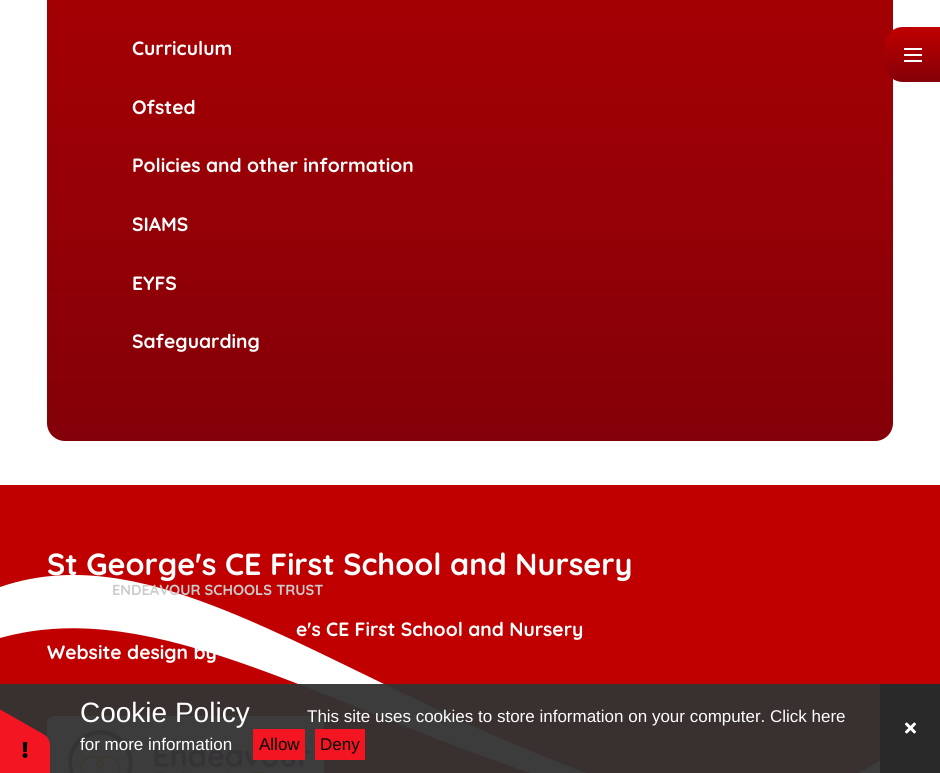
#include <cairo.h>
#include <math.h>
#include <stddef.h>

typedef struct { double x, y; const char *s; } line_t;
typedef struct { double x, y, w, h; unsigned color; } box_t;

static void ink(cairo_t *ctx, unsigned color) {
    cairo_set_source_rgb(ctx, (color >> 16) / 255.0, (color >> 8 & 255) / 255.0, (color & 255) / 255.0);
}

static void round_path(cairo_t *ctx, double x, double y, double w, double h, double r) {
    cairo_new_sub_path(ctx);
    cairo_arc(ctx, x + w - r, y + h - r, r, 0, M_PI / 2);
    cairo_arc(ctx, x + r, y + h - r, r, M_PI / 2, M_PI);
    cairo_arc(ctx, x + r, y + r, r, M_PI, 1.5 * M_PI);
    cairo_arc(ctx, x + w - r, y + r, r, 1.5 * M_PI, 2 * M_PI);
    cairo_close_path(ctx);
}

static void paste(cairo_t *ctx, const char *path, double x, double y, double w, double h) {
    cairo_surface_t *image = cairo_image_surface_create_from_png(path);
    cairo_save(ctx);
    cairo_set_source_surface(ctx, image, x, y);
    cairo_rectangle(ctx, x, y, w, h);
    cairo_fill(ctx);
    cairo_restore(ctx);
    cairo_surface_destroy(image);
}

int main(void) {
    cairo_surface_t *surface = cairo_image_surface_create(CAIRO_FORMAT_RGB24, 940, 773);
    cairo_t *ctx = cairo_create(surface);
    cairo_font_options_t *options = cairo_font_options_create();
    cairo_font_options_set_hint_metrics(options, CAIRO_HINT_METRICS_OFF);
    cairo_font_options_set_hint_style(options, CAIRO_HINT_STYLE_NONE);
    cairo_set_font_options(ctx, options);
    cairo_set_miter_limit(ctx, 4);
    cairo_pattern_t *gradient;
    ink(ctx, 0xFFFFFF);
    cairo_paint(ctx);
    gradient = cairo_pattern_create_linear(470, -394, 470, 441);
    cairo_pattern_add_color_stop_rgba(gradient, 0, 0.753, 0, 0, 1);
    cairo_pattern_add_color_stop_rgba(gradient, 1, 0.518, 0, 0.031, 1);
    cairo_set_source(ctx, gradient);
    cairo_pattern_destroy(gradient);
    round_path(ctx, 47, -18, 846, 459, 18);
    cairo_fill(ctx);
    cairo_select_font_face(ctx, "Quicksand", CAIRO_FONT_SLANT_NORMAL, CAIRO_FONT_WEIGHT_BOLD);
    cairo_set_font_size(ctx, 19.25);
    ink(ctx, 0xFFFFFF);
    {
        static const line_t items[] = {
            {132, 55, "Curriculum"},
            {132, 114, "Ofsted"},
            {132, 172, "Policies and other information"},
            {132, 231, "SIAMS"},
            {132, 290, "EYFS"},
            {132, 348, "Safeguarding"},
        };
        for (size_t i = 0; i < sizeof items / sizeof *items; i++) {
            cairo_move_to(ctx, items[i].x, items[i].y);
            cairo_show_text(ctx, items[i].s);
        }
    }
    gradient = cairo_pattern_create_linear(913, 27, 913, 82);
    cairo_pattern_add_color_stop_rgba(gradient, 0, 0.753, 0, 0, 1);
    cairo_pattern_add_color_stop_rgba(gradient, 1, 0.518, 0, 0.031, 1);
    cairo_set_source(ctx, gradient);
    cairo_pattern_destroy(gradient);
    cairo_new_path(ctx);
    cairo_move_to(ctx, 903, 27);
    cairo_line_to(ctx, 940, 27);
    cairo_line_to(ctx, 940, 82);
    cairo_line_to(ctx, 903, 82);
    cairo_curve_to(ctx, 893, 82, 885, 74, 885, 64);
    cairo_line_to(ctx, 885, 45);
    cairo_curve_to(ctx, 885, 35, 893, 27, 903, 27);
    cairo_close_path(ctx);
    cairo_fill(ctx);
    {
        static const box_t items[] = {
            {904, 48, 18, 2, 0xFFFFFF},
            {904, 54, 18, 2, 0xFFFFFF},
            {904, 60, 18, 2, 0xFFFFFF},
            {0, 485, 940, 288, 0xC00000},
        };
        for (size_t i = 0; i < sizeof items / sizeof *items; i++) {
            ink(ctx, items[i].color);
            cairo_rectangle(ctx, items[i].x, items[i].y, items[i].w, items[i].h);
            cairo_fill(ctx);
        }
    }
    ink(ctx, 0xFFFFFF);
    cairo_new_path(ctx);
    cairo_move_to(ctx, 573, 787);
    cairo_curve_to(ctx, 324, 709, 157, 594, 0, 638);
    cairo_line_to(ctx, 0, 587);
    cairo_curve_to(ctx, 157, 533, 324, 673, 573, 768);
    cairo_curve_to(ctx, 787, 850, 894, 764, 940, 704);
    cairo_line_to(ctx, 940, 735);
    cairo_curve_to(ctx, 894, 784, 787, 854, 573, 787);
    cairo_close_path(ctx);
    cairo_fill(ctx);
    cairo_set_font_size(ctx, 30.5);
    cairo_move_to(ctx, 47, 575);
    cairo_show_text(ctx, "St George's CE First School and Nursery");
    cairo_set_font_size(ctx, 14.6);
    ink(ctx, 0xCCCCCC);
    cairo_move_to(ctx, 112, 595);
    cairo_show_text(ctx, "ENDEAVOUR SCHOOLS TRUST");
    cairo_set_font_size(ctx, 19.25);
    ink(ctx, 0xFFFFFF);
    cairo_move_to(ctx, 296, 636);
    cairo_show_text(ctx, "e's CE First School and Nursery");
    cairo_move_to(ctx, 47, 659);
    cairo_show_text(ctx, "Website design by");
    round_path(ctx, 47, 716, 277, 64, 7);
    cairo_fill(ctx);
    paste(ctx, "media/1.png", 68, 730, 242, 43);
    cairo_set_source_rgba(ctx, 0.2, 0.2, 0.2, 0.95);
    cairo_rectangle(ctx, 0, 684, 880, 89);
    cairo_fill(ctx);
    ink(ctx, 0xF31622);
    cairo_new_path(ctx);
    cairo_move_to(ctx, 50, 746);
    cairo_line_to(ctx, 50, 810);
    cairo_curve_to(ctx, 50, 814, 48, 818, 46, 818);
    cairo_line_to(ctx, -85, 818);
    cairo_curve_to(ctx, -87, 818, -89, 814, -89, 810);
    cairo_line_to(ctx, -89, 746);
    cairo_curve_to(ctx, -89, 741, -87, 738, -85, 738);
    cairo_line_to(ctx, 46, 738);
    cairo_curve_to(ctx, 48, 738, 50, 741, 50, 746);
    cairo_close_path(ctx);
    cairo_fill(ctx);
    cairo_new_path(ctx);
    cairo_move_to(ctx, -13, 702);
    cairo_line_to(ctx, 43, 734);
    cairo_curve_to(ctx, 47, 736, 49, 739, 48, 741);
    cairo_line_to(ctx, -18, 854);
    cairo_curve_to(ctx, -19, 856, -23, 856, -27, 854);
    cairo_line_to(ctx, -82, 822);
    cairo_curve_to(ctx, -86, 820, -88, 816, -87, 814);
    cairo_line_to(ctx, -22, 701);
    cairo_curve_to(ctx, -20, 699, -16, 700, -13, 702);
    cairo_close_path(ctx);
    cairo_fill(ctx);
    paste(ctx, "media/2.png", 22, 742, 6, 16);
    cairo_select_font_face(ctx, "Liberation Sans", CAIRO_FONT_SLANT_NORMAL, CAIRO_FONT_WEIGHT_NORMAL);
    cairo_set_font_size(ctx, 28);
    ink(ctx, 0xFFFFFF);
    cairo_move_to(ctx, 80, 722);
    cairo_show_text(ctx, "Cookie Policy");
    cairo_set_font_size(ctx, 17);
    cairo_move_to(ctx, 307, 722);
    cairo_show_text(ctx, "This site uses cookies to store information on your computer. Click here");
    cairo_move_to(ctx, 80, 750);
    cairo_show_text(ctx, "for more information");
    ink(ctx, 0xF31622);
    cairo_rectangle(ctx, 253, 729, 52, 31);
    cairo_fill(ctx);
    ink(ctx, 0x000000);
    cairo_move_to(ctx, 259, 750);
    cairo_show_text(ctx, "Allow");
    ink(ctx, 0xF31622);
    cairo_rectangle(ctx, 315, 729, 50, 31);
    cairo_fill(ctx);
    ink(ctx, 0x000000);
    cairo_move_to(ctx, 320, 750);
    cairo_show_text(ctx, "Deny");
    ink(ctx, 0x292929);
    cairo_rectangle(ctx, 880, 684, 60, 89);
    cairo_fill(ctx);
    paste(ctx, "media/3.png", 905, 722, 11, 12);
    cairo_surface_write_to_png(surface, "image.png");
    cairo_font_options_destroy(options);
    cairo_destroy(ctx);
    cairo_surface_destroy(surface);
    return 0;
}
